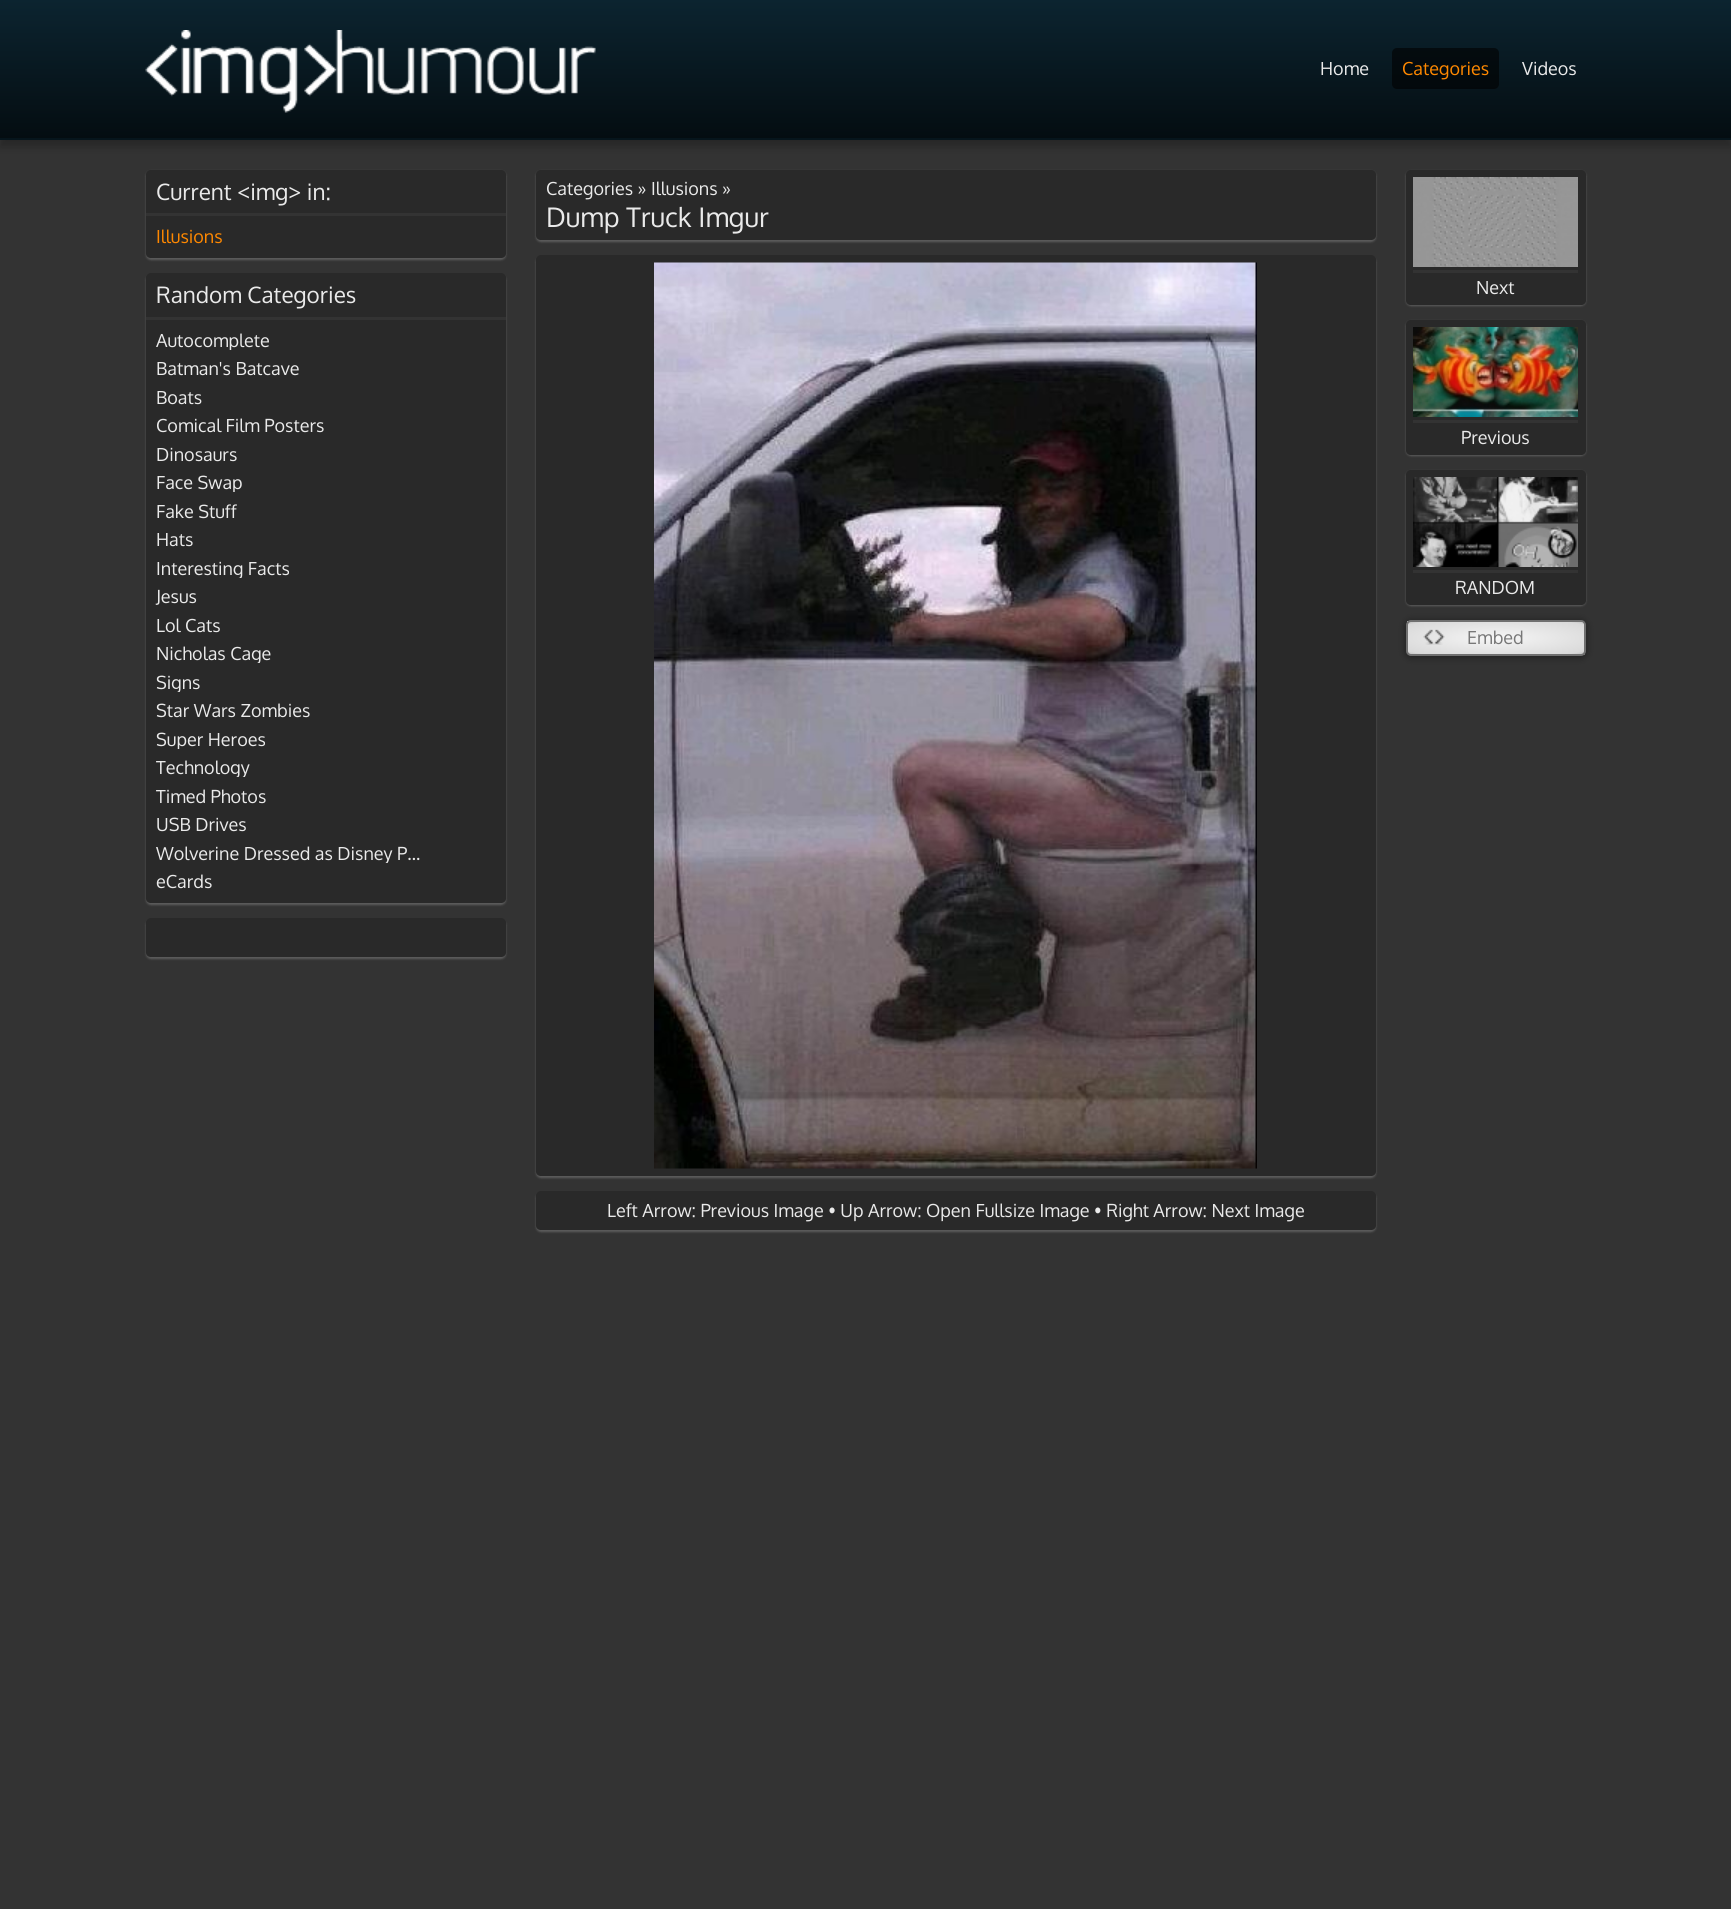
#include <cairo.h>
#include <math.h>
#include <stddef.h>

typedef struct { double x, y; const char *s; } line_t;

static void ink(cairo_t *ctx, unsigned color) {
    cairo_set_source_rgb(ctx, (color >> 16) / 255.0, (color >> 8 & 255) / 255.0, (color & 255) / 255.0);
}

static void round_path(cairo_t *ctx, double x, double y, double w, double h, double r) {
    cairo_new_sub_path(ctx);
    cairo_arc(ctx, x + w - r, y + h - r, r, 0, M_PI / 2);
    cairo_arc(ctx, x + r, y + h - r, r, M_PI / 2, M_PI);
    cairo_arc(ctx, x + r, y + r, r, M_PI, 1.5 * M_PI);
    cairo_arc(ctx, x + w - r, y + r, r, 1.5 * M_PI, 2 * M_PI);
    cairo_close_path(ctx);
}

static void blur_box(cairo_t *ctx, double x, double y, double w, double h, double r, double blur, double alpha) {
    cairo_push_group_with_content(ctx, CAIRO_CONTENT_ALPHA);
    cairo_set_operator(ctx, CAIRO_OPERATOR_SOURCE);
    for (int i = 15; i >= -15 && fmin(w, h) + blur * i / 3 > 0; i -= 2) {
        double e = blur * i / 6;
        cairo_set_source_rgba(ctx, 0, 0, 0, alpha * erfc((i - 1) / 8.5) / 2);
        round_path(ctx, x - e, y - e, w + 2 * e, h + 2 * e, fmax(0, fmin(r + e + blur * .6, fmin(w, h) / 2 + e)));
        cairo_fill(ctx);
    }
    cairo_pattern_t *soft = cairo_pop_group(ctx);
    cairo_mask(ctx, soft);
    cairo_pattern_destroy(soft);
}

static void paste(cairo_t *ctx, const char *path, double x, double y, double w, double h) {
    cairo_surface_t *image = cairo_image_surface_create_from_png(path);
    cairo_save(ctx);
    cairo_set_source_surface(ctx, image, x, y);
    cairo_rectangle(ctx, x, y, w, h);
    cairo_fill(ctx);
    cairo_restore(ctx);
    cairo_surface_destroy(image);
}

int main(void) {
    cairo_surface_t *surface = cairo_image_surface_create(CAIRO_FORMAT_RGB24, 1731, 1909);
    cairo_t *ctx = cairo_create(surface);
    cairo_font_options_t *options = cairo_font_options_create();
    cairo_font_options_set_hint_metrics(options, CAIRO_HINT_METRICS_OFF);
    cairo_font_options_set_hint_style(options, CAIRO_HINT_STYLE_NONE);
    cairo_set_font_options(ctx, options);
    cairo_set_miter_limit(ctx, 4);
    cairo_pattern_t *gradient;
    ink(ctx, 0x333333);
    cairo_paint(ctx);
    ink(ctx, 0x0A0A0A);
    blur_box(ctx, 0, 8, 1731, 139, 0, 4, 0.3);
    gradient = cairo_pattern_create_linear(866, 0, 866, 138);
    cairo_pattern_add_color_stop_rgba(gradient, 0, 0.047, 0.141, 0.188, 1);
    cairo_pattern_add_color_stop_rgba(gradient, 1, 0.016, 0.051, 0.067, 1);
    cairo_set_source(ctx, gradient);
    cairo_pattern_destroy(gradient);
    cairo_rectangle(ctx, 0, 0, 1731, 138);
    cairo_fill(ctx);
    ink(ctx, 0x06151C);
    cairo_rectangle(ctx, 0, 138, 1731, 2);
    cairo_fill(ctx);
    paste(ctx, "media/1.png", 145, 30, 451, 83);
    cairo_select_font_face(ctx, "Oxygen", CAIRO_FONT_SLANT_NORMAL, CAIRO_FONT_WEIGHT_NORMAL);
    cairo_set_font_size(ctx, 18);
    ink(ctx, 0xEAEAEA);
    cairo_move_to(ctx, 1320, 75);
    cairo_show_text(ctx, "Home");
    cairo_set_source_rgba(ctx, 0, 0, 0, 0.6);
    round_path(ctx, 1392, 48, 107, 41, 5);
    cairo_fill(ctx);
    ink(ctx, 0xFF8800);
    cairo_move_to(ctx, 1402, 75);
    cairo_show_text(ctx, "Categories");
    ink(ctx, 0xEAEAEA);
    cairo_move_to(ctx, 1522, 75);
    cairo_show_text(ctx, "Videos");
    cairo_save(ctx);
    cairo_set_fill_rule(ctx, CAIRO_FILL_RULE_EVEN_ODD);
    cairo_new_path(ctx);
    cairo_move_to(ctx, 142, 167);
    cairo_line_to(ctx, 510, 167);
    cairo_line_to(ctx, 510, 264);
    cairo_line_to(ctx, 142, 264);
    cairo_close_path(ctx);
    cairo_move_to(ctx, 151, 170);
    cairo_line_to(ctx, 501, 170);
    cairo_curve_to(ctx, 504, 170, 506, 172, 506, 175);
    cairo_line_to(ctx, 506, 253);
    cairo_curve_to(ctx, 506, 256, 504, 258, 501, 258);
    cairo_line_to(ctx, 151, 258);
    cairo_curve_to(ctx, 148, 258, 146, 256, 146, 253);
    cairo_line_to(ctx, 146, 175);
    cairo_curve_to(ctx, 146, 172, 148, 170, 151, 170);
    cairo_close_path(ctx);
    cairo_clip(ctx);
    ink(ctx, 0xFFFFFF);
    blur_box(ctx, 146, 171, 360, 89, 5, 1, 0.2);
    cairo_restore(ctx);
    cairo_set_source_rgba(ctx, 0, 0, 0, 0.2);
    round_path(ctx, 146, 170, 360, 88, 5);
    cairo_fill(ctx);
    ink(ctx, 0x333333);
    cairo_rectangle(ctx, 146, 213, 360, 3);
    cairo_fill(ctx);
    cairo_set_font_size(ctx, 22.5);
    ink(ctx, 0xEAEAEA);
    cairo_move_to(ctx, 156, 200);
    cairo_show_text(ctx, "Current <img> in:");
    cairo_set_font_size(ctx, 18);
    ink(ctx, 0xFF8800);
    cairo_move_to(ctx, 156, 243);
    cairo_show_text(ctx, "Illusions");
    cairo_save(ctx);
    cairo_set_fill_rule(ctx, CAIRO_FILL_RULE_EVEN_ODD);
    cairo_new_path(ctx);
    cairo_move_to(ctx, 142, 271);
    cairo_line_to(ctx, 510, 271);
    cairo_line_to(ctx, 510, 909);
    cairo_line_to(ctx, 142, 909);
    cairo_close_path(ctx);
    cairo_move_to(ctx, 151, 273);
    cairo_line_to(ctx, 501, 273);
    cairo_curve_to(ctx, 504, 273, 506, 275, 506, 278);
    cairo_line_to(ctx, 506, 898);
    cairo_curve_to(ctx, 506, 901, 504, 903, 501, 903);
    cairo_line_to(ctx, 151, 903);
    cairo_curve_to(ctx, 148, 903, 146, 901, 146, 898);
    cairo_line_to(ctx, 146, 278);
    cairo_curve_to(ctx, 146, 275, 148, 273, 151, 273);
    cairo_close_path(ctx);
    cairo_clip(ctx);
    ink(ctx, 0xFFFFFF);
    blur_box(ctx, 146, 275, 360, 630, 5, 1, 0.2);
    cairo_restore(ctx);
    cairo_set_source_rgba(ctx, 0, 0, 0, 0.2);
    round_path(ctx, 146, 273, 360, 630, 5);
    cairo_fill(ctx);
    ink(ctx, 0x333333);
    cairo_rectangle(ctx, 146, 317, 360, 3);
    cairo_fill(ctx);
    cairo_set_font_size(ctx, 22.5);
    ink(ctx, 0xEAEAEA);
    cairo_move_to(ctx, 156, 303);
    cairo_show_text(ctx, "Random Categories");
    cairo_save(ctx);
    cairo_rectangle(ctx, 156, 332, 270, 18);
    cairo_clip(ctx);
    cairo_set_font_size(ctx, 18);
    cairo_move_to(ctx, 156, 347);
    cairo_show_text(ctx, "Autocomplete");
    cairo_restore(ctx);
    cairo_set_font_size(ctx, 18);
    {
        static const line_t items[] = {
            {156, 375, "Batman's Batcave"},
            {156, 404, "Boats"},
            {156, 432, "Comical Film Posters"},
            {156, 461, "Dinosaurs"},
        };
        for (size_t i = 0; i < sizeof items / sizeof *items; i++) {
            cairo_move_to(ctx, items[i].x, items[i].y);
            cairo_show_text(ctx, items[i].s);
        }
    }
    cairo_save(ctx);
    cairo_rectangle(ctx, 156, 474, 270, 18);
    cairo_clip(ctx);
    cairo_move_to(ctx, 156, 489);
    cairo_show_text(ctx, "Face Swap");
    cairo_restore(ctx);
    cairo_move_to(ctx, 156, 518);
    cairo_show_text(ctx, "Fake Stuff");
    cairo_move_to(ctx, 156, 546);
    cairo_show_text(ctx, "Hats");
    cairo_save(ctx);
    cairo_rectangle(ctx, 156, 560, 270, 18);
    cairo_clip(ctx);
    cairo_move_to(ctx, 156, 575);
    cairo_show_text(ctx, "Interesting Facts");
    cairo_restore(ctx);
    cairo_move_to(ctx, 156, 603);
    cairo_show_text(ctx, "Jesus");
    cairo_move_to(ctx, 156, 632);
    cairo_show_text(ctx, "Lol Cats");
    cairo_save(ctx);
    cairo_rectangle(ctx, 156, 645, 270, 18);
    cairo_clip(ctx);
    cairo_move_to(ctx, 156, 660);
    cairo_show_text(ctx, "Nicholas Cage");
    cairo_restore(ctx);
    cairo_save(ctx);
    cairo_rectangle(ctx, 156, 674, 270, 18);
    cairo_clip(ctx);
    cairo_move_to(ctx, 156, 689);
    cairo_show_text(ctx, "Signs");
    cairo_restore(ctx);
    cairo_move_to(ctx, 156, 717);
    cairo_show_text(ctx, "Star Wars Zombies");
    cairo_save(ctx);
    cairo_rectangle(ctx, 156, 731, 270, 18);
    cairo_clip(ctx);
    cairo_move_to(ctx, 156, 746);
    cairo_show_text(ctx, "Super Heroes");
    cairo_restore(ctx);
    cairo_save(ctx);
    cairo_rectangle(ctx, 156, 759, 270, 18);
    cairo_clip(ctx);
    cairo_move_to(ctx, 156, 774);
    cairo_show_text(ctx, "Technology");
    cairo_restore(ctx);
    cairo_move_to(ctx, 156, 803);
    cairo_show_text(ctx, "Timed Photos");
    cairo_move_to(ctx, 156, 831);
    cairo_show_text(ctx, "USB Drives");
    cairo_save(ctx);
    cairo_rectangle(ctx, 156, 845, 270, 18);
    cairo_clip(ctx);
    cairo_move_to(ctx, 156, 860);
    cairo_show_text(ctx, "Wolverine Dressed as Disney P…");
    cairo_restore(ctx);
    cairo_move_to(ctx, 156, 888);
    cairo_show_text(ctx, "eCards");
    cairo_save(ctx);
    cairo_set_fill_rule(ctx, CAIRO_FILL_RULE_EVEN_ODD);
    cairo_new_path(ctx);
    cairo_move_to(ctx, 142, 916);
    cairo_line_to(ctx, 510, 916);
    cairo_line_to(ctx, 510, 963);
    cairo_line_to(ctx, 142, 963);
    cairo_close_path(ctx);
    cairo_move_to(ctx, 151, 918);
    cairo_line_to(ctx, 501, 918);
    cairo_curve_to(ctx, 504, 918, 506, 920, 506, 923);
    cairo_line_to(ctx, 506, 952);
    cairo_curve_to(ctx, 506, 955, 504, 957, 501, 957);
    cairo_line_to(ctx, 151, 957);
    cairo_curve_to(ctx, 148, 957, 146, 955, 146, 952);
    cairo_line_to(ctx, 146, 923);
    cairo_curve_to(ctx, 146, 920, 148, 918, 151, 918);
    cairo_close_path(ctx);
    cairo_clip(ctx);
    ink(ctx, 0xFFFFFF);
    blur_box(ctx, 146, 920, 360, 39, 5, 1, 0.2);
    cairo_restore(ctx);
    cairo_set_source_rgba(ctx, 0, 0, 0, 0.2);
    round_path(ctx, 146, 918, 360, 39, 5);
    cairo_fill(ctx);
    cairo_save(ctx);
    cairo_set_fill_rule(ctx, CAIRO_FILL_RULE_EVEN_ODD);
    cairo_new_path(ctx);
    cairo_move_to(ctx, 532, 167);
    cairo_line_to(ctx, 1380, 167);
    cairo_line_to(ctx, 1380, 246);
    cairo_line_to(ctx, 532, 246);
    cairo_close_path(ctx);
    cairo_move_to(ctx, 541, 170);
    cairo_line_to(ctx, 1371, 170);
    cairo_curve_to(ctx, 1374, 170, 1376, 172, 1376, 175);
    cairo_line_to(ctx, 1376, 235);
    cairo_curve_to(ctx, 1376, 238, 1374, 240, 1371, 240);
    cairo_line_to(ctx, 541, 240);
    cairo_curve_to(ctx, 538, 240, 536, 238, 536, 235);
    cairo_line_to(ctx, 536, 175);
    cairo_curve_to(ctx, 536, 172, 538, 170, 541, 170);
    cairo_close_path(ctx);
    cairo_clip(ctx);
    ink(ctx, 0xFFFFFF);
    blur_box(ctx, 536, 171, 840, 71, 5, 1, 0.2);
    cairo_restore(ctx);
    round_path(ctx, 536, 170, 840, 70, 5);
    cairo_fill(ctx);
    ink(ctx, 0xEAEAEA);
    cairo_move_to(ctx, 546, 195);
    cairo_show_text(ctx, "Categories » Illusions »");
    cairo_set_font_size(ctx, 27);
    cairo_move_to(ctx, 546, 227);
    cairo_show_text(ctx, "Dump Truck Imgur");
    cairo_save(ctx);
    cairo_set_fill_rule(ctx, CAIRO_FILL_RULE_EVEN_ODD);
    cairo_new_path(ctx);
    cairo_move_to(ctx, 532, 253);
    cairo_line_to(ctx, 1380, 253);
    cairo_line_to(ctx, 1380, 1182);
    cairo_line_to(ctx, 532, 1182);
    cairo_close_path(ctx);
    cairo_move_to(ctx, 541, 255);
    cairo_line_to(ctx, 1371, 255);
    cairo_curve_to(ctx, 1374, 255, 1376, 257, 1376, 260);
    cairo_line_to(ctx, 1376, 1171);
    cairo_curve_to(ctx, 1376, 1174, 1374, 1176, 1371, 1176);
    cairo_line_to(ctx, 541, 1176);
    cairo_curve_to(ctx, 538, 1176, 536, 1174, 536, 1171);
    cairo_line_to(ctx, 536, 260);
    cairo_curve_to(ctx, 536, 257, 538, 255, 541, 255);
    cairo_close_path(ctx);
    cairo_clip(ctx);
    ink(ctx, 0xFFFFFF);
    blur_box(ctx, 536, 257, 840, 921, 5, 1, 0.2);
    cairo_restore(ctx);
    cairo_set_source_rgba(ctx, 0, 0, 0, 0.2);
    round_path(ctx, 536, 255, 840, 921, 5);
    cairo_fill(ctx);
    paste(ctx, "media/2.png", 654, 262, 603, 907);
    cairo_save(ctx);
    cairo_set_fill_rule(ctx, CAIRO_FILL_RULE_EVEN_ODD);
    cairo_new_path(ctx);
    cairo_move_to(ctx, 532, 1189);
    cairo_line_to(ctx, 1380, 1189);
    cairo_line_to(ctx, 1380, 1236);
    cairo_line_to(ctx, 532, 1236);
    cairo_close_path(ctx);
    cairo_move_to(ctx, 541, 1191);
    cairo_line_to(ctx, 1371, 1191);
    cairo_curve_to(ctx, 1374, 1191, 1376, 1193, 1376, 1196);
    cairo_line_to(ctx, 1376, 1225);
    cairo_curve_to(ctx, 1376, 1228, 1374, 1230, 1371, 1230);
    cairo_line_to(ctx, 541, 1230);
    cairo_curve_to(ctx, 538, 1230, 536, 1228, 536, 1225);
    cairo_line_to(ctx, 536, 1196);
    cairo_curve_to(ctx, 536, 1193, 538, 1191, 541, 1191);
    cairo_close_path(ctx);
    cairo_clip(ctx);
    ink(ctx, 0xFFFFFF);
    blur_box(ctx, 536, 1193, 840, 39, 5, 1, 0.2);
    cairo_restore(ctx);
    round_path(ctx, 536, 1191, 840, 39, 5);
    cairo_fill(ctx);
    cairo_set_font_size(ctx, 18);
    ink(ctx, 0xEAEAEA);
    cairo_move_to(ctx, 607, 1217);
    cairo_show_text(ctx, "Left Arrow: Previous Image • Up Arrow: Open Fullsize Image • Right Arrow: Next Image");
    cairo_save(ctx);
    cairo_set_fill_rule(ctx, CAIRO_FILL_RULE_EVEN_ODD);
    cairo_new_path(ctx);
    cairo_move_to(ctx, 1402, 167);
    cairo_line_to(ctx, 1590, 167);
    cairo_line_to(ctx, 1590, 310);
    cairo_line_to(ctx, 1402, 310);
    cairo_close_path(ctx);
    cairo_move_to(ctx, 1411, 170);
    cairo_line_to(ctx, 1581, 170);
    cairo_curve_to(ctx, 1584, 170, 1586, 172, 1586, 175);
    cairo_line_to(ctx, 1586, 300);
    cairo_curve_to(ctx, 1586, 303, 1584, 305, 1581, 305);
    cairo_line_to(ctx, 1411, 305);
    cairo_curve_to(ctx, 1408, 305, 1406, 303, 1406, 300);
    cairo_line_to(ctx, 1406, 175);
    cairo_curve_to(ctx, 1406, 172, 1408, 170, 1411, 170);
    cairo_close_path(ctx);
    cairo_clip(ctx);
    ink(ctx, 0xFFFFFF);
    blur_box(ctx, 1406, 171, 180, 135, 5, 1, 0.2);
    cairo_restore(ctx);
    cairo_set_source_rgba(ctx, 0, 0, 0, 0.2);
    round_path(ctx, 1406, 170, 180, 135, 5);
    cairo_fill(ctx);
    paste(ctx, "media/3.png", 1413, 177, 165, 90);
    ink(ctx, 0x333333);
    cairo_rectangle(ctx, 1413, 270, 165, 3);
    cairo_fill(ctx);
    ink(ctx, 0xEAEAEA);
    cairo_move_to(ctx, 1476, 294);
    cairo_show_text(ctx, "Next");
    cairo_save(ctx);
    cairo_set_fill_rule(ctx, CAIRO_FILL_RULE_EVEN_ODD);
    cairo_new_path(ctx);
    cairo_move_to(ctx, 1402, 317);
    cairo_line_to(ctx, 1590, 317);
    cairo_line_to(ctx, 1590, 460);
    cairo_line_to(ctx, 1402, 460);
    cairo_close_path(ctx);
    cairo_move_to(ctx, 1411, 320);
    cairo_line_to(ctx, 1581, 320);
    cairo_curve_to(ctx, 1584, 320, 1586, 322, 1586, 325);
    cairo_line_to(ctx, 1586, 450);
    cairo_curve_to(ctx, 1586, 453, 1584, 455, 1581, 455);
    cairo_line_to(ctx, 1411, 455);
    cairo_curve_to(ctx, 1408, 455, 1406, 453, 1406, 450);
    cairo_line_to(ctx, 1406, 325);
    cairo_curve_to(ctx, 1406, 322, 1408, 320, 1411, 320);
    cairo_close_path(ctx);
    cairo_clip(ctx);
    ink(ctx, 0xFFFFFF);
    blur_box(ctx, 1406, 321, 180, 135, 5, 1, 0.2);
    cairo_restore(ctx);
    cairo_set_source_rgba(ctx, 0, 0, 0, 0.2);
    round_path(ctx, 1406, 320, 180, 135, 5);
    cairo_fill(ctx);
    paste(ctx, "media/4.png", 1413, 327, 165, 90);
    ink(ctx, 0x333333);
    cairo_rectangle(ctx, 1413, 420, 165, 3);
    cairo_fill(ctx);
    ink(ctx, 0xEAEAEA);
    cairo_move_to(ctx, 1461, 444);
    cairo_show_text(ctx, "Previous");
    cairo_save(ctx);
    cairo_set_fill_rule(ctx, CAIRO_FILL_RULE_EVEN_ODD);
    cairo_new_path(ctx);
    cairo_move_to(ctx, 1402, 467);
    cairo_line_to(ctx, 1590, 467);
    cairo_line_to(ctx, 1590, 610);
    cairo_line_to(ctx, 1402, 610);
    cairo_close_path(ctx);
    cairo_move_to(ctx, 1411, 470);
    cairo_line_to(ctx, 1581, 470);
    cairo_curve_to(ctx, 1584, 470, 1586, 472, 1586, 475);
    cairo_line_to(ctx, 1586, 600);
    cairo_curve_to(ctx, 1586, 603, 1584, 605, 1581, 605);
    cairo_line_to(ctx, 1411, 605);
    cairo_curve_to(ctx, 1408, 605, 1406, 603, 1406, 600);
    cairo_line_to(ctx, 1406, 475);
    cairo_curve_to(ctx, 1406, 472, 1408, 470, 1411, 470);
    cairo_close_path(ctx);
    cairo_clip(ctx);
    ink(ctx, 0xFFFFFF);
    blur_box(ctx, 1406, 471, 180, 135, 5, 1, 0.2);
    cairo_restore(ctx);
    cairo_set_source_rgba(ctx, 0, 0, 0, 0.2);
    round_path(ctx, 1406, 470, 180, 135, 5);
    cairo_fill(ctx);
    paste(ctx, "media/5.png", 1413, 477, 165, 90);
    ink(ctx, 0x333333);
    cairo_rectangle(ctx, 1413, 570, 165, 3);
    cairo_fill(ctx);
    ink(ctx, 0xEAEAEA);
    cairo_move_to(ctx, 1455, 594);
    cairo_show_text(ctx, "RANDOM");
    ink(ctx, 0x000000);
    blur_box(ctx, 1406, 621, 180, 36, 5, 4, 0.45);
    gradient = cairo_pattern_create_radial(0, 0, 0, 0, 0, 1);
    cairo_pattern_set_matrix(gradient, &(cairo_matrix_t){1.0 / 125, 0, 0, 1.0 / 23, -1.0 * 1496 / 125, -1.0 * 638 / 23});
    cairo_pattern_add_color_stop_rgba(gradient, 0, 0.988, 0.988, 0.988, 1);
    cairo_pattern_add_color_stop_rgba(gradient, 0.03, 0.969, 0.969, 0.969, 1);
    cairo_pattern_add_color_stop_rgba(gradient, 0.12, 0.949, 0.949, 0.949, 1);
    cairo_pattern_add_color_stop_rgba(gradient, 0.9, 0.851, 0.851, 0.851, 1);
    cairo_pattern_add_color_stop_rgba(gradient, 1, 0.749, 0.749, 0.749, 1);
    cairo_set_source(ctx, gradient);
    cairo_pattern_destroy(gradient);
    cairo_rectangle(ctx, 1407, 621, 177, 33);
    cairo_fill(ctx);
    cairo_save(ctx);
    round_path(ctx, 1406, 620, 180, 36, 5);
    cairo_clip(ctx);
    gradient = cairo_pattern_create_radial(0, 0, 0, 0, 0, 1);
    cairo_pattern_set_matrix(gradient, &(cairo_matrix_t){1.0 / 125, 0, 0, 1.0 / 23, -1.0 * 1673 / 125, -1.0 * 671 / 23});
    cairo_pattern_add_color_stop_rgba(gradient, 0, 0.988, 0.988, 0.988, 1);
    cairo_pattern_add_color_stop_rgba(gradient, 0.03, 0.969, 0.969, 0.969, 1);
    cairo_pattern_add_color_stop_rgba(gradient, 0.12, 0.949, 0.949, 0.949, 1);
    cairo_pattern_add_color_stop_rgba(gradient, 0.9, 0.851, 0.851, 0.851, 1);
    cairo_pattern_add_color_stop_rgba(gradient, 1, 0.749, 0.749, 0.749, 1);
    cairo_set_source(ctx, gradient);
    cairo_pattern_destroy(gradient);
    cairo_rectangle(ctx, 1584, 654, 2, 1);
    cairo_fill(ctx);
    cairo_restore(ctx);
    ink(ctx, 0xFFFFFF);
    cairo_new_path(ctx);
    cairo_move_to(ctx, 1410, 622);
    cairo_line_to(ctx, 1581, 622);
    cairo_curve_to(ctx, 1583, 622, 1584, 624, 1584, 626);
    cairo_line_to(ctx, 1584, 624);
    cairo_curve_to(ctx, 1584, 622, 1583, 621, 1581, 621);
    cairo_line_to(ctx, 1410, 621);
    cairo_curve_to(ctx, 1408, 621, 1407, 622, 1407, 624);
    cairo_line_to(ctx, 1407, 626);
    cairo_curve_to(ctx, 1407, 624, 1408, 622, 1410, 622);
    cairo_close_path(ctx);
    cairo_fill(ctx);
    round_path(ctx, 1407, 621, 178, 34, 4);
    ink(ctx, 0x707070);
    cairo_stroke(ctx);
    paste(ctx, "media/6.png", 1423, 629, 22, 16);
    ink(ctx, 0x777777);
    cairo_move_to(ctx, 1467, 644);
    cairo_show_text(ctx, "Embed");
    cairo_surface_write_to_png(surface, "image.png");
    cairo_font_options_destroy(options);
    cairo_destroy(ctx);
    cairo_surface_destroy(surface);
    return 0;
}
